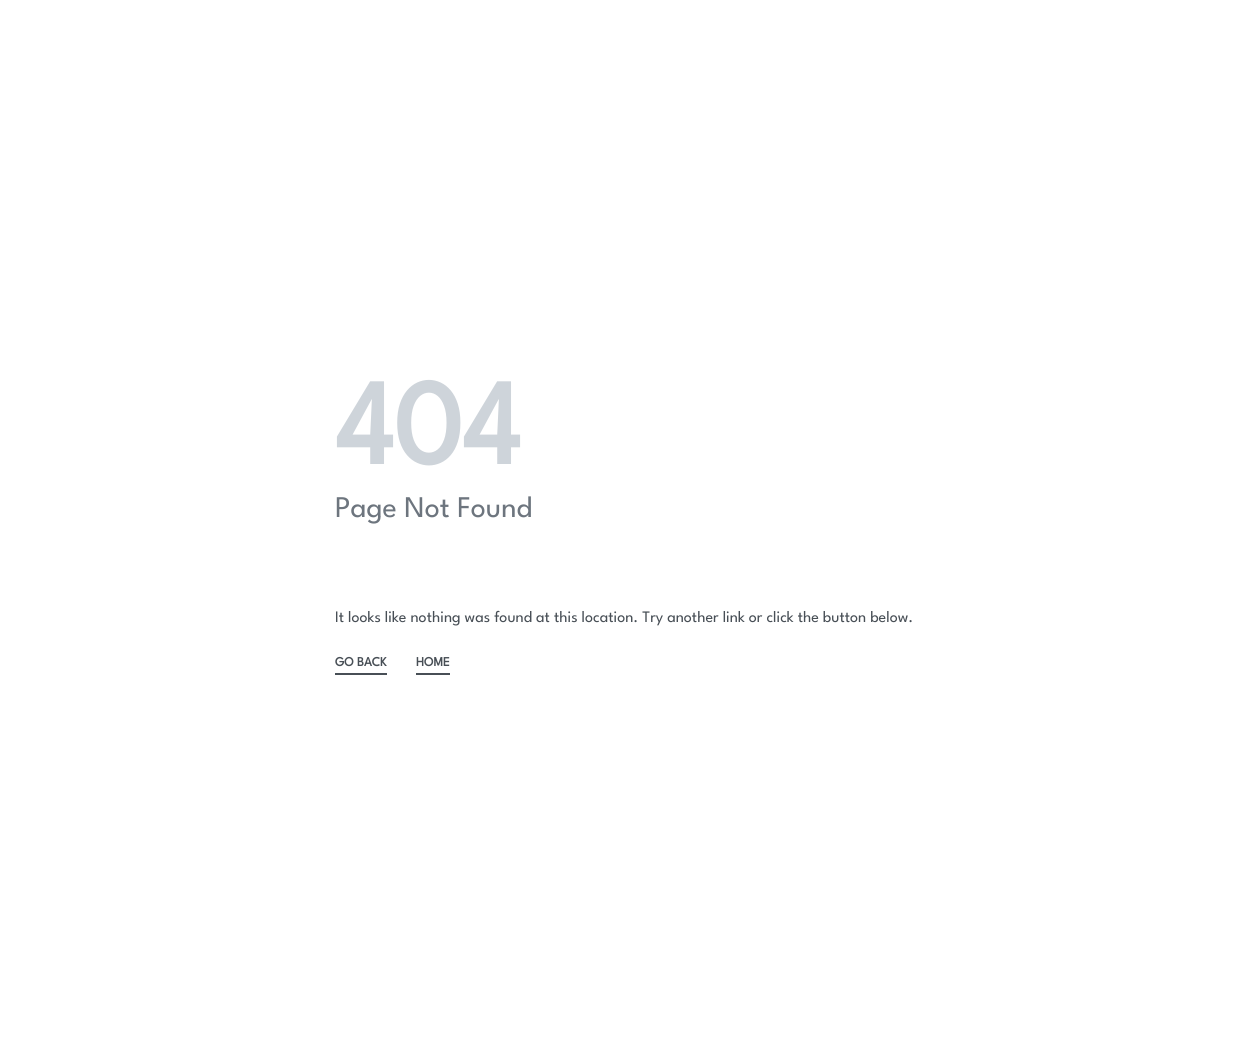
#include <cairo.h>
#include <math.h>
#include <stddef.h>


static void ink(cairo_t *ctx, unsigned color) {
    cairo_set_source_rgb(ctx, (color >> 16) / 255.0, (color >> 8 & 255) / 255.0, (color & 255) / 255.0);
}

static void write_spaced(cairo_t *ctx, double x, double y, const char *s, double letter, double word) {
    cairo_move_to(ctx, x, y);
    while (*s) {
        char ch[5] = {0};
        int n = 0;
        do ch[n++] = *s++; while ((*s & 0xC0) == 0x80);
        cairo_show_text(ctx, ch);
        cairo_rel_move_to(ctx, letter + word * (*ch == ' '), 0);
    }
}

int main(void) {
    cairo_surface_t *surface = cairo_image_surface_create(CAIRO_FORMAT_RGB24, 1249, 1054);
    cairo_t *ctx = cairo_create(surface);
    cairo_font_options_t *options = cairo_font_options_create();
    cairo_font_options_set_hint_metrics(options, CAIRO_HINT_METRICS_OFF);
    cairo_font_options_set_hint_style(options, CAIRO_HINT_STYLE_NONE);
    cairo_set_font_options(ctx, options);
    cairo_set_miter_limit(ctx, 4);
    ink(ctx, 0xFFFFFF);
    cairo_paint(ctx);
    cairo_select_font_face(ctx, "League Spartan", CAIRO_FONT_SLANT_NORMAL, CAIRO_FONT_WEIGHT_BOLD);
    cairo_set_font_size(ctx, 120);
    ink(ctx, 0xCED4DA);
    write_spaced(ctx, 335, 464, "404", -1, 0);
    cairo_select_font_face(ctx, "League Spartan Thin", CAIRO_FONT_SLANT_NORMAL, CAIRO_FONT_WEIGHT_NORMAL);
    cairo_set_font_size(ctx, 30);
    ink(ctx, 0x6D757E);
    cairo_move_to(ctx, 335, 517);
    cairo_show_text(ctx, "Page Not Found");
    cairo_set_font_size(ctx, 16);
    ink(ctx, 0x484F56);
    cairo_move_to(ctx, 335, 622);
    cairo_show_text(ctx, "It looks like nothing was found at this location. Try another link or click the button below.");
    cairo_select_font_face(ctx, "League Spartan", CAIRO_FONT_SLANT_NORMAL, CAIRO_FONT_WEIGHT_BOLD);
    cairo_set_font_size(ctx, 13);
    cairo_move_to(ctx, 335, 666);
    cairo_show_text(ctx, "GO BACK");
    cairo_rectangle(ctx, 335, 673, 52, 2);
    cairo_fill(ctx);
    cairo_move_to(ctx, 416, 666);
    cairo_show_text(ctx, "HOME");
    cairo_rectangle(ctx, 416, 673, 34, 2);
    cairo_fill(ctx);
    cairo_surface_write_to_png(surface, "image.png");
    cairo_font_options_destroy(options);
    cairo_destroy(ctx);
    cairo_surface_destroy(surface);
    return 0;
}
